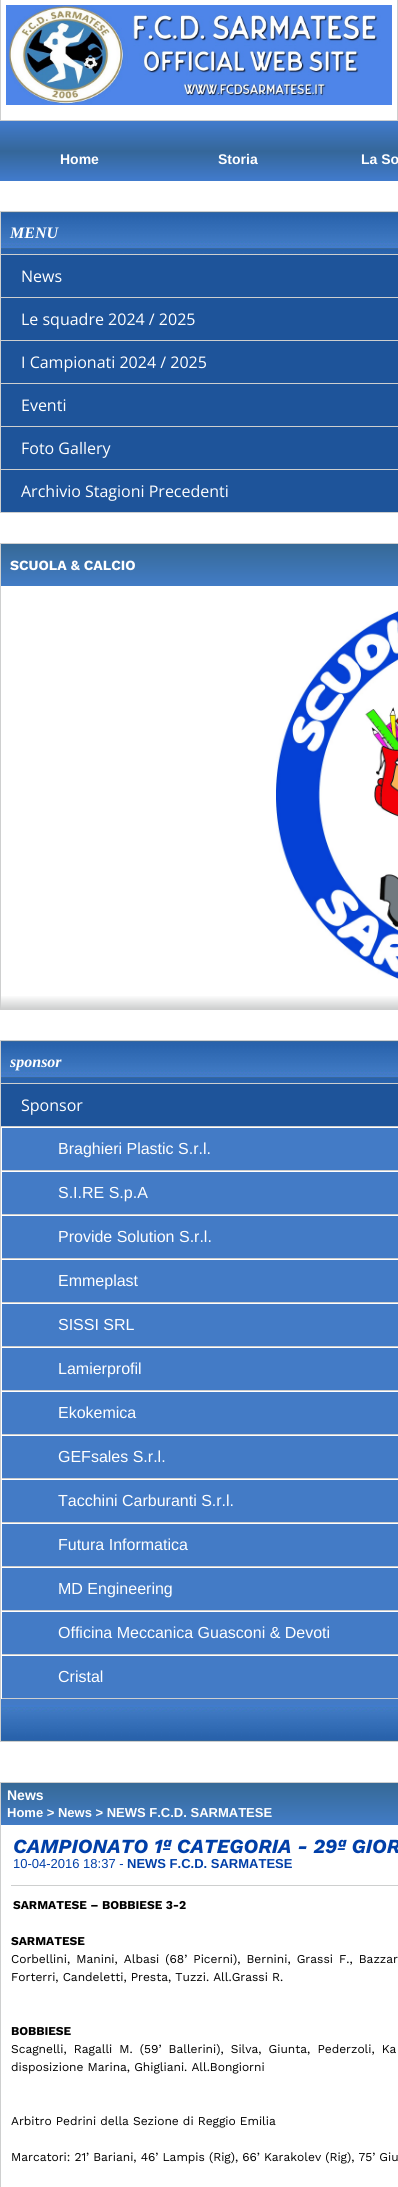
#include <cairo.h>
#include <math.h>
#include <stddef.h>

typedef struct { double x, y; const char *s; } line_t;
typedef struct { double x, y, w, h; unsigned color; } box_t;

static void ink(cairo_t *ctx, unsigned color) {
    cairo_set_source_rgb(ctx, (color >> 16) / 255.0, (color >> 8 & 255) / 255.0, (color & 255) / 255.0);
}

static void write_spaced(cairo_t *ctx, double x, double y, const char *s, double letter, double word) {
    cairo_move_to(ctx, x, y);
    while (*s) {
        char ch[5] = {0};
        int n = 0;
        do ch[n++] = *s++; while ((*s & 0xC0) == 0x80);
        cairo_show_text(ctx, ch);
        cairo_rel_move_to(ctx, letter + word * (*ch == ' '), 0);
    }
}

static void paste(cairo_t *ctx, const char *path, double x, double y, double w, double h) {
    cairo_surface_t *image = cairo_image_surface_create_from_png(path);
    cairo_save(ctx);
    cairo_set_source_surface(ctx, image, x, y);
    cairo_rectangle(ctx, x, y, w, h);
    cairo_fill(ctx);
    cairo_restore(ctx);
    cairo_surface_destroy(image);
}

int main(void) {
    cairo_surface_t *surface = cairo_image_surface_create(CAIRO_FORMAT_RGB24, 398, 2187);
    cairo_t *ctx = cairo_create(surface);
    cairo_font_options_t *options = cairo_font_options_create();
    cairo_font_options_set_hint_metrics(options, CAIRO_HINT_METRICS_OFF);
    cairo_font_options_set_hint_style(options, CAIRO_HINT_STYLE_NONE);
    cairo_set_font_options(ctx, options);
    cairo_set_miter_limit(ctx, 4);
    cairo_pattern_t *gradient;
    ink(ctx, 0xFFFFFF);
    cairo_paint(ctx);
    cairo_rectangle(ctx, 0.5, -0.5, 397, 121);
    ink(ctx, 0xCECFCF);
    cairo_set_line_width(ctx, 1);
    cairo_stroke(ctx);
    paste(ctx, "media/1.png", 6, 5, 386, 100);
    gradient = cairo_pattern_create_linear(199, 121, 199, 181);
    cairo_pattern_add_color_stop_rgba(gradient, 0, 0.255, 0.482, 0.804, 1);
    cairo_pattern_add_color_stop_rgba(gradient, 0.5, 0.208, 0.404, 0.604, 1);
    cairo_pattern_add_color_stop_rgba(gradient, 0.51, 0.208, 0.404, 0.604, 1);
    cairo_pattern_add_color_stop_rgba(gradient, 1, 0.255, 0.482, 0.804, 1);
    cairo_set_source(ctx, gradient);
    cairo_pattern_destroy(gradient);
    cairo_rectangle(ctx, 0, 121, 398, 60);
    cairo_fill(ctx);
    cairo_select_font_face(ctx, "Liberation Sans", CAIRO_FONT_SLANT_NORMAL, CAIRO_FONT_WEIGHT_BOLD);
    cairo_set_font_size(ctx, 14);
    ink(ctx, 0xFFFFFF);
    {
        static const line_t items[] = {
            {60, 164, "Home"},
            {218, 164, "Storia"},
            {361, 164, "La So"},
        };
        for (size_t i = 0; i < sizeof items / sizeof *items; i++) {
            cairo_move_to(ctx, items[i].x, items[i].y);
            cairo_show_text(ctx, items[i].s);
        }
    }
    paste(ctx, "media/2.png", 1, 212, 397, 42);
    cairo_rectangle(ctx, 0.5, 211.5, 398, 43);
    ink(ctx, 0xCECFCF);
    cairo_stroke(ctx);
    cairo_select_font_face(ctx, "Liberation Serif", CAIRO_FONT_SLANT_ITALIC, CAIRO_FONT_WEIGHT_BOLD);
    cairo_set_font_size(ctx, 16);
    ink(ctx, 0xFFFFFF);
    cairo_move_to(ctx, 10, 238);
    cairo_show_text(ctx, "MENU");
    {
        static const box_t items[] = {
            {0, 255, 1, 258, 0xCECFCF},
            {1, 255, 397, 42, 0x1E549A},
            {1, 297, 397, 1, 0xCECFCF},
        };
        for (size_t i = 0; i < sizeof items / sizeof *items; i++) {
            ink(ctx, items[i].color);
            cairo_rectangle(ctx, items[i].x, items[i].y, items[i].w, items[i].h);
            cairo_fill(ctx);
        }
    }
    cairo_select_font_face(ctx, "Open Sans", CAIRO_FONT_SLANT_NORMAL, CAIRO_FONT_WEIGHT_NORMAL);
    ink(ctx, 0xFFFFFF);
    cairo_move_to(ctx, 21, 282);
    cairo_show_text(ctx, "News");
    ink(ctx, 0x1E549A);
    cairo_rectangle(ctx, 1, 298, 397, 42);
    cairo_fill(ctx);
    ink(ctx, 0xCECFCF);
    cairo_rectangle(ctx, 1, 340, 397, 1);
    cairo_fill(ctx);
    ink(ctx, 0xFFFFFF);
    cairo_move_to(ctx, 21, 325);
    cairo_show_text(ctx, "Le squadre 2024 / 2025");
    ink(ctx, 0x1E549A);
    cairo_rectangle(ctx, 1, 341, 397, 42);
    cairo_fill(ctx);
    ink(ctx, 0xCECFCF);
    cairo_rectangle(ctx, 1, 383, 397, 1);
    cairo_fill(ctx);
    ink(ctx, 0xFFFFFF);
    cairo_move_to(ctx, 21, 368);
    cairo_show_text(ctx, "I Campionati 2024 / 2025");
    ink(ctx, 0x1E549A);
    cairo_rectangle(ctx, 1, 384, 397, 42);
    cairo_fill(ctx);
    ink(ctx, 0xCECFCF);
    cairo_rectangle(ctx, 1, 426, 397, 1);
    cairo_fill(ctx);
    ink(ctx, 0xFFFFFF);
    cairo_move_to(ctx, 21, 411);
    cairo_show_text(ctx, "Eventi");
    ink(ctx, 0x1E549A);
    cairo_rectangle(ctx, 1, 427, 397, 42);
    cairo_fill(ctx);
    ink(ctx, 0xCECFCF);
    cairo_rectangle(ctx, 1, 469, 397, 1);
    cairo_fill(ctx);
    ink(ctx, 0xFFFFFF);
    cairo_move_to(ctx, 21, 454);
    cairo_show_text(ctx, "Foto Gallery");
    ink(ctx, 0x1E549A);
    cairo_rectangle(ctx, 1, 470, 397, 42);
    cairo_fill(ctx);
    ink(ctx, 0xCECFCF);
    cairo_rectangle(ctx, 1, 512, 397, 1);
    cairo_fill(ctx);
    ink(ctx, 0xFFFFFF);
    cairo_move_to(ctx, 21, 497);
    cairo_show_text(ctx, "Archivio Stagioni Precedenti");
    gradient = cairo_pattern_create_linear(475, 1009, 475, 544);
    cairo_pattern_add_color_stop_rgba(gradient, 0, 0.808, 0.812, 0.812, 1);
    cairo_pattern_add_color_stop_rgba(gradient, 0.03, 1, 1, 1, 1);
    cairo_set_source(ctx, gradient);
    cairo_pattern_destroy(gradient);
    cairo_rectangle(ctx, 1, 996, 397, 13);
    cairo_fill(ctx);
    cairo_rectangle(ctx, 0.5, 543.5, 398, 466);
    ink(ctx, 0xCECFCF);
    cairo_stroke(ctx);
    gradient = cairo_pattern_create_linear(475, 586, 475, 544);
    cairo_pattern_add_color_stop_rgba(gradient, 0, 0.259, 0.486, 0.776, 1);
    cairo_pattern_add_color_stop_rgba(gradient, 1, 0.212, 0.412, 0.588, 1);
    cairo_set_source(ctx, gradient);
    cairo_pattern_destroy(gradient);
    cairo_rectangle(ctx, 1, 544, 397, 42);
    cairo_fill(ctx);
    cairo_select_font_face(ctx, "Work Sans", CAIRO_FONT_SLANT_NORMAL, CAIRO_FONT_WEIGHT_BOLD);
    cairo_set_font_size(ctx, 14);
    ink(ctx, 0xFFFFFF);
    cairo_move_to(ctx, 10, 570);
    cairo_show_text(ctx, "SCUOLA & CALCIO");
    paste(ctx, "media/3.png", 276, 611, 122, 368);
    paste(ctx, "media/2.png", 1, 1041, 397, 42);
    cairo_rectangle(ctx, 0.5, 1040.5, 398, 43);
    ink(ctx, 0xCECFCF);
    cairo_stroke(ctx);
    cairo_select_font_face(ctx, "Liberation Serif", CAIRO_FONT_SLANT_ITALIC, CAIRO_FONT_WEIGHT_BOLD);
    cairo_set_font_size(ctx, 16);
    ink(ctx, 0xFFFFFF);
    cairo_move_to(ctx, 10, 1067);
    cairo_show_text(ctx, "sponsor");
    {
        static const box_t items[] = {
            {0, 1084, 1, 615, 0xCECFCF},
            {1, 1084, 397, 42, 0x1E549A},
            {1, 1126, 397, 1, 0xCECFCF},
        };
        for (size_t i = 0; i < sizeof items / sizeof *items; i++) {
            ink(ctx, items[i].color);
            cairo_rectangle(ctx, items[i].x, items[i].y, items[i].w, items[i].h);
            cairo_fill(ctx);
        }
    }
    cairo_select_font_face(ctx, "Open Sans", CAIRO_FONT_SLANT_NORMAL, CAIRO_FONT_WEIGHT_NORMAL);
    ink(ctx, 0xFFFFFF);
    cairo_move_to(ctx, 21, 1111);
    cairo_show_text(ctx, "Sponsor");
    {
        static const box_t items[] = {
            {2, 1128, 396, 42, 0x437BC6},
            {1, 1170, 397, 1, 0xCECFCF},
            {1, 1170, 1, 1, 0xFFFFFF},
        };
        for (size_t i = 0; i < sizeof items / sizeof *items; i++) {
            ink(ctx, items[i].color);
            cairo_rectangle(ctx, items[i].x, items[i].y, items[i].w, items[i].h);
            cairo_fill(ctx);
        }
    }
    cairo_select_font_face(ctx, "Liberation Sans", CAIRO_FONT_SLANT_NORMAL, CAIRO_FONT_WEIGHT_NORMAL);
    cairo_move_to(ctx, 58, 1154);
    cairo_show_text(ctx, "Braghieri Plastic S.r.l.");
    {
        static const box_t items[] = {
            {2, 1172, 396, 42, 0x437BC6},
            {1, 1214, 397, 1, 0xCECFCF},
            {1, 1214, 1, 1, 0xFFFFFF},
        };
        for (size_t i = 0; i < sizeof items / sizeof *items; i++) {
            ink(ctx, items[i].color);
            cairo_rectangle(ctx, items[i].x, items[i].y, items[i].w, items[i].h);
            cairo_fill(ctx);
        }
    }
    cairo_move_to(ctx, 58, 1198);
    cairo_show_text(ctx, "S.I.RE S.p.A");
    {
        static const box_t items[] = {
            {2, 1216, 396, 42, 0x437BC6},
            {1, 1258, 397, 1, 0xCECFCF},
            {1, 1258, 1, 1, 0xFFFFFF},
        };
        for (size_t i = 0; i < sizeof items / sizeof *items; i++) {
            ink(ctx, items[i].color);
            cairo_rectangle(ctx, items[i].x, items[i].y, items[i].w, items[i].h);
            cairo_fill(ctx);
        }
    }
    cairo_move_to(ctx, 58, 1242);
    cairo_show_text(ctx, "Provide Solution S.r.l.");
    {
        static const box_t items[] = {
            {2, 1260, 396, 42, 0x437BC6},
            {1, 1302, 397, 1, 0xCECFCF},
            {1, 1302, 1, 1, 0xFFFFFF},
        };
        for (size_t i = 0; i < sizeof items / sizeof *items; i++) {
            ink(ctx, items[i].color);
            cairo_rectangle(ctx, items[i].x, items[i].y, items[i].w, items[i].h);
            cairo_fill(ctx);
        }
    }
    cairo_move_to(ctx, 58, 1286);
    cairo_show_text(ctx, "Emmeplast");
    {
        static const box_t items[] = {
            {2, 1304, 396, 42, 0x437BC6},
            {1, 1346, 397, 1, 0xCECFCF},
            {1, 1346, 1, 1, 0xFFFFFF},
        };
        for (size_t i = 0; i < sizeof items / sizeof *items; i++) {
            ink(ctx, items[i].color);
            cairo_rectangle(ctx, items[i].x, items[i].y, items[i].w, items[i].h);
            cairo_fill(ctx);
        }
    }
    cairo_move_to(ctx, 58, 1330);
    cairo_show_text(ctx, "SISSI SRL");
    {
        static const box_t items[] = {
            {2, 1348, 396, 42, 0x437BC6},
            {1, 1390, 397, 1, 0xCECFCF},
            {1, 1390, 1, 1, 0xFFFFFF},
        };
        for (size_t i = 0; i < sizeof items / sizeof *items; i++) {
            ink(ctx, items[i].color);
            cairo_rectangle(ctx, items[i].x, items[i].y, items[i].w, items[i].h);
            cairo_fill(ctx);
        }
    }
    cairo_move_to(ctx, 58, 1374);
    cairo_show_text(ctx, "Lamierprofil");
    {
        static const box_t items[] = {
            {2, 1392, 396, 42, 0x437BC6},
            {1, 1434, 397, 1, 0xCECFCF},
            {1, 1434, 1, 1, 0xFFFFFF},
        };
        for (size_t i = 0; i < sizeof items / sizeof *items; i++) {
            ink(ctx, items[i].color);
            cairo_rectangle(ctx, items[i].x, items[i].y, items[i].w, items[i].h);
            cairo_fill(ctx);
        }
    }
    cairo_move_to(ctx, 58, 1418);
    cairo_show_text(ctx, "Ekokemica");
    {
        static const box_t items[] = {
            {2, 1436, 396, 42, 0x437BC6},
            {1, 1478, 397, 1, 0xCECFCF},
            {1, 1478, 1, 1, 0xFFFFFF},
        };
        for (size_t i = 0; i < sizeof items / sizeof *items; i++) {
            ink(ctx, items[i].color);
            cairo_rectangle(ctx, items[i].x, items[i].y, items[i].w, items[i].h);
            cairo_fill(ctx);
        }
    }
    cairo_move_to(ctx, 58, 1462);
    cairo_show_text(ctx, "GEFsales S.r.l.");
    {
        static const box_t items[] = {
            {2, 1480, 396, 42, 0x437BC6},
            {1, 1522, 397, 1, 0xCECFCF},
            {1, 1522, 1, 1, 0xFFFFFF},
        };
        for (size_t i = 0; i < sizeof items / sizeof *items; i++) {
            ink(ctx, items[i].color);
            cairo_rectangle(ctx, items[i].x, items[i].y, items[i].w, items[i].h);
            cairo_fill(ctx);
        }
    }
    cairo_move_to(ctx, 58, 1506);
    cairo_show_text(ctx, "Tacchini Carburanti S.r.l.");
    {
        static const box_t items[] = {
            {2, 1524, 396, 42, 0x437BC6},
            {1, 1566, 397, 1, 0xCECFCF},
            {1, 1566, 1, 1, 0xFFFFFF},
        };
        for (size_t i = 0; i < sizeof items / sizeof *items; i++) {
            ink(ctx, items[i].color);
            cairo_rectangle(ctx, items[i].x, items[i].y, items[i].w, items[i].h);
            cairo_fill(ctx);
        }
    }
    cairo_move_to(ctx, 58, 1550);
    cairo_show_text(ctx, "Futura Informatica");
    {
        static const box_t items[] = {
            {2, 1568, 396, 42, 0x437BC6},
            {1, 1610, 397, 1, 0xCECFCF},
            {1, 1610, 1, 1, 0xFFFFFF},
        };
        for (size_t i = 0; i < sizeof items / sizeof *items; i++) {
            ink(ctx, items[i].color);
            cairo_rectangle(ctx, items[i].x, items[i].y, items[i].w, items[i].h);
            cairo_fill(ctx);
        }
    }
    cairo_move_to(ctx, 58, 1594);
    cairo_show_text(ctx, "MD Engineering");
    {
        static const box_t items[] = {
            {2, 1612, 396, 42, 0x437BC6},
            {1, 1654, 397, 1, 0xCECFCF},
            {1, 1654, 1, 1, 0xFFFFFF},
        };
        for (size_t i = 0; i < sizeof items / sizeof *items; i++) {
            ink(ctx, items[i].color);
            cairo_rectangle(ctx, items[i].x, items[i].y, items[i].w, items[i].h);
            cairo_fill(ctx);
        }
    }
    cairo_move_to(ctx, 58, 1638);
    cairo_show_text(ctx, "Officina Meccanica Guasconi & Devoti");
    {
        static const box_t items[] = {
            {2, 1656, 396, 42, 0x437BC6},
            {1, 1698, 397, 1, 0xCECFCF},
            {1, 1698, 1, 1, 0xFFFFFF},
        };
        for (size_t i = 0; i < sizeof items / sizeof *items; i++) {
            ink(ctx, items[i].color);
            cairo_rectangle(ctx, items[i].x, items[i].y, items[i].w, items[i].h);
            cairo_fill(ctx);
        }
    }
    cairo_move_to(ctx, 58, 1682);
    cairo_show_text(ctx, "Cristal");
    {
        static const box_t items[] = {
            {0, 1741, 398, 1, 0xCECFCF},
            {0, 1699, 1, 43, 0xCECFCF},
            {1, 1699, 397, 6, 0x437BC6},
        };
        for (size_t i = 0; i < sizeof items / sizeof *items; i++) {
            ink(ctx, items[i].color);
            cairo_rectangle(ctx, items[i].x, items[i].y, items[i].w, items[i].h);
            cairo_fill(ctx);
        }
    }
    paste(ctx, "media/4.png", 1, 1705, 397, 36);
    cairo_rectangle(ctx, 0.5, 1782.5, 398, 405);
    ink(ctx, 0xCECFCF);
    cairo_stroke(ctx);
    gradient = cairo_pattern_create_linear(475, 1825, 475, 1783);
    cairo_pattern_add_color_stop_rgba(gradient, 0, 0.259, 0.486, 0.776, 1);
    cairo_pattern_add_color_stop_rgba(gradient, 1, 0.212, 0.412, 0.588, 1);
    cairo_set_source(ctx, gradient);
    cairo_pattern_destroy(gradient);
    cairo_rectangle(ctx, 1, 1783, 397, 42);
    cairo_fill(ctx);
    cairo_select_font_face(ctx, "Liberation Sans", CAIRO_FONT_SLANT_NORMAL, CAIRO_FONT_WEIGHT_BOLD);
    cairo_set_font_size(ctx, 14);
    ink(ctx, 0xFFFFFF);
    cairo_move_to(ctx, 7, 1800);
    cairo_show_text(ctx, "News");
    cairo_set_font_size(ctx, 13);
    cairo_move_to(ctx, 7, 1817);
    cairo_show_text(ctx, "Home > News > NEWS F.C.D. SARMATESE");
    ink(ctx, 0xCECFCF);
    cairo_rectangle(ctx, 11, 1885, 387, 1);
    cairo_fill(ctx);
    cairo_select_font_face(ctx, "Work Sans", CAIRO_FONT_SLANT_ITALIC, CAIRO_FONT_WEIGHT_BOLD);
    cairo_set_font_size(ctx, 20);
    ink(ctx, 0x003FA8);
    cairo_move_to(ctx, 13, 1853);
    cairo_show_text(ctx, "CAMPIONATO 1ª CATEGORIA - 29ª GIOR");
    cairo_select_font_face(ctx, "Liberation Sans", CAIRO_FONT_SLANT_NORMAL, CAIRO_FONT_WEIGHT_NORMAL);
    cairo_set_font_size(ctx, 13);
    cairo_move_to(ctx, 13, 1868);
    cairo_show_text(ctx, "10-04-2016 18:37 -");
    cairo_select_font_face(ctx, "Liberation Sans", CAIRO_FONT_SLANT_NORMAL, CAIRO_FONT_WEIGHT_BOLD);
    cairo_move_to(ctx, 127, 1868);
    cairo_show_text(ctx, "NEWS F.C.D. SARMATESE");
    cairo_select_font_face(ctx, "Work Sans", CAIRO_FONT_SLANT_NORMAL, CAIRO_FONT_WEIGHT_BOLD);
    cairo_set_font_size(ctx, 12);
    ink(ctx, 0x000000);
    cairo_move_to(ctx, 13, 1909);
    cairo_show_text(ctx, "SARMATESE – BOBBIESE 3-2");
    cairo_move_to(ctx, 11, 1945);
    cairo_show_text(ctx, "SARMATESE");
    cairo_select_font_face(ctx, "Work Sans", CAIRO_FONT_SLANT_NORMAL, CAIRO_FONT_WEIGHT_NORMAL);
    write_spaced(ctx, 11, 1963, "Corbellini, Manini, Albasi (68’ Picerni), Bernini, Grassi F., Bazzar", 0, 2);
    cairo_move_to(ctx, 11, 1981);
    cairo_show_text(ctx, "Forterri, Candeletti, Presta, Tuzzi. All.Grassi R.");
    cairo_select_font_face(ctx, "Work Sans", CAIRO_FONT_SLANT_NORMAL, CAIRO_FONT_WEIGHT_BOLD);
    cairo_move_to(ctx, 11, 2035);
    cairo_show_text(ctx, "BOBBIESE");
    cairo_select_font_face(ctx, "Work Sans", CAIRO_FONT_SLANT_NORMAL, CAIRO_FONT_WEIGHT_NORMAL);
    write_spaced(ctx, 11, 2053, "Scagnelli, Ragalli M. (59’ Ballerini), Silva, Giunta, Pederzoli, Ka", 0, 3);
    {
        static const line_t items[] = {
            {11, 2071, "disposizione Marina, Ghigliani. All.Bongiorni"},
            {11, 2125, "Arbitro Pedrini della Sezione di Reggio Emilia"},
            {11, 2161, "Marcatori: 21’ Bariani, 46’ Lampis (Rig), 66’ Karakolev (Rig), 75’ Giu"},
        };
        for (size_t i = 0; i < sizeof items / sizeof *items; i++) {
            cairo_move_to(ctx, items[i].x, items[i].y);
            cairo_show_text(ctx, items[i].s);
        }
    }
    cairo_surface_write_to_png(surface, "image.png");
    cairo_font_options_destroy(options);
    cairo_destroy(ctx);
    cairo_surface_destroy(surface);
    return 0;
}
